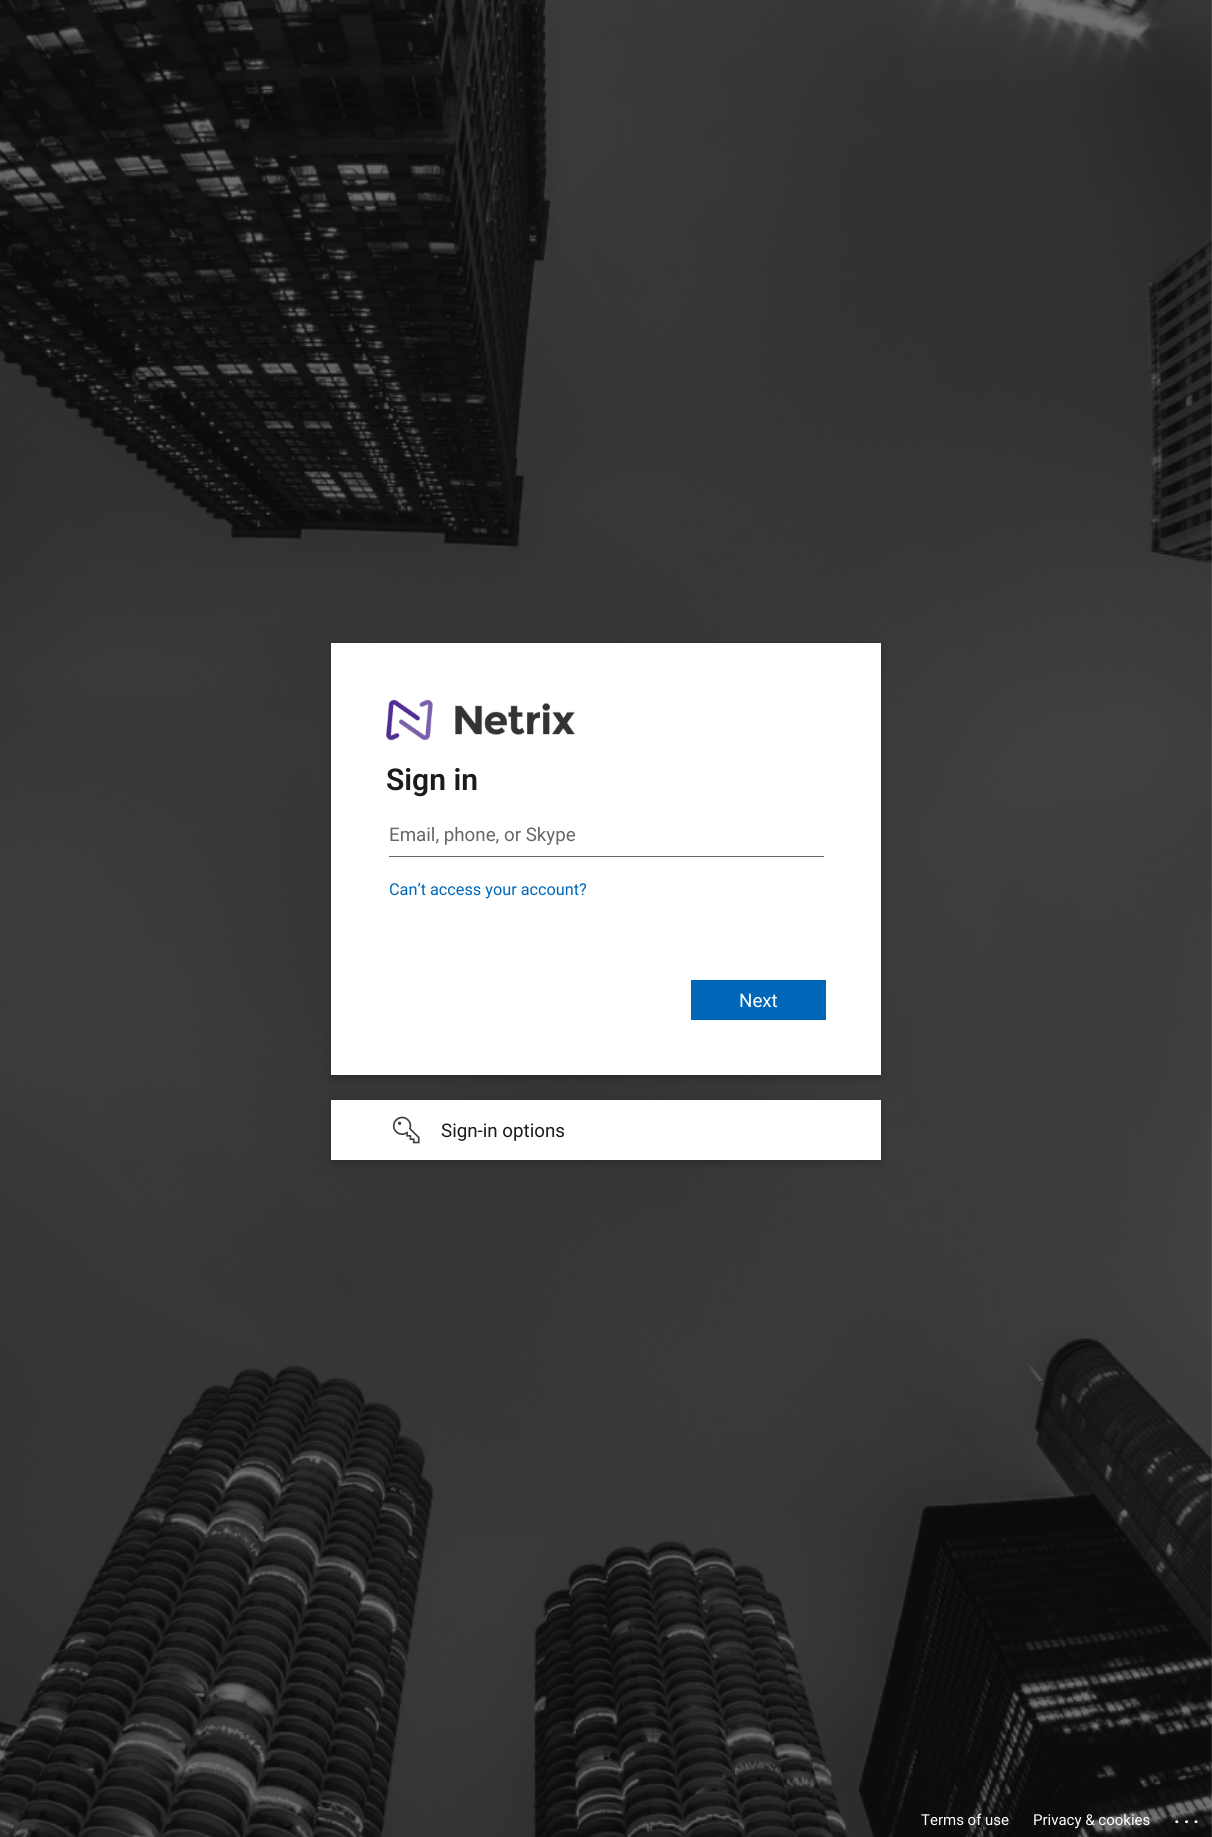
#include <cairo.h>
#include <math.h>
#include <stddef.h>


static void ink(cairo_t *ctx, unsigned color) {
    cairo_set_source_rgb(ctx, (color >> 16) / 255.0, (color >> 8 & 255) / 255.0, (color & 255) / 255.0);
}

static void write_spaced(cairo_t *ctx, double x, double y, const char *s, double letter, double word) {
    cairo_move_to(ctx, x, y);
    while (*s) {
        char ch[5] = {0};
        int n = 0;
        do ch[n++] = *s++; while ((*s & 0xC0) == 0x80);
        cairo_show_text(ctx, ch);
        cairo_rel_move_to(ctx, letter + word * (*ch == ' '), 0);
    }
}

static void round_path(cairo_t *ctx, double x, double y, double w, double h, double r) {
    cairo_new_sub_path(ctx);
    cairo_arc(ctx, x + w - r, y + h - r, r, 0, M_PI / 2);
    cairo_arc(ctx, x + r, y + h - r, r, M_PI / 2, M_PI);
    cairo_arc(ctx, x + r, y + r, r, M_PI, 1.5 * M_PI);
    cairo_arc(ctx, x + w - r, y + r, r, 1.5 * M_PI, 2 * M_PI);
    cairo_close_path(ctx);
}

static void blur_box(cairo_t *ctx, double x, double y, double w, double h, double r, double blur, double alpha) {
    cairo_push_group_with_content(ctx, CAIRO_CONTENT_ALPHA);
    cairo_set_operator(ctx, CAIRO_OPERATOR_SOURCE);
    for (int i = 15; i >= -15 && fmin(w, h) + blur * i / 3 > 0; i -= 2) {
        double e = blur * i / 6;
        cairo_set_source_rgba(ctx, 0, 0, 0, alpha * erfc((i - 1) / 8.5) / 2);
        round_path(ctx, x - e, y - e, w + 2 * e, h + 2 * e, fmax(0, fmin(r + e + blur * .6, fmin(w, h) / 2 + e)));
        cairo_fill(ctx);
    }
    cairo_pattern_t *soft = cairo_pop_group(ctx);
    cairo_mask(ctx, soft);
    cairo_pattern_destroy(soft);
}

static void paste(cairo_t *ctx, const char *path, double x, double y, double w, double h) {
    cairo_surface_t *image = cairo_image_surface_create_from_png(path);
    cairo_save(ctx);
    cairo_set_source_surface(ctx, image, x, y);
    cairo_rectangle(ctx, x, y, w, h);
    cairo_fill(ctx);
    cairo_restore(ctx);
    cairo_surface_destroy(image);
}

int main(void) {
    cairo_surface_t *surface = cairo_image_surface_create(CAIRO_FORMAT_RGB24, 1212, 1837);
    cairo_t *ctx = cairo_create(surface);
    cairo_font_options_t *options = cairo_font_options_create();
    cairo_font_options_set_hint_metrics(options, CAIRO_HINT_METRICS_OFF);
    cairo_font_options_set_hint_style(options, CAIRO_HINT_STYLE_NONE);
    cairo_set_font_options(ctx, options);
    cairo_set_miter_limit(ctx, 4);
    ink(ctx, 0xFFFFFF);
    cairo_paint(ctx);
    paste(ctx, "media/1.png", 0, 0, 1212, 1837);
    ink(ctx, 0x000000);
    blur_box(ctx, 331, 645, 550, 433, 0, 4, 0.2);
    ink(ctx, 0xFFFFFF);
    cairo_rectangle(ctx, 331, 643, 550, 432);
    cairo_fill(ctx);
    paste(ctx, "media/2.png", 386, 699, 189, 42);
    cairo_select_font_face(ctx, "Roboto SemiBold", CAIRO_FONT_SLANT_NORMAL, CAIRO_FONT_WEIGHT_NORMAL);
    cairo_set_font_size(ctx, 30);
    ink(ctx, 0x1B1B1B);
    cairo_move_to(ctx, 386, 790);
    cairo_show_text(ctx, "Sign in");
    ink(ctx, 0x666666);
    cairo_rectangle(ctx, 389, 856, 435, 1);
    cairo_fill(ctx);
    cairo_select_font_face(ctx, "Roboto", CAIRO_FONT_SLANT_NORMAL, CAIRO_FONT_WEIGHT_NORMAL);
    cairo_set_font_size(ctx, 18.75);
    cairo_move_to(ctx, 389, 841);
    cairo_show_text(ctx, "Email, phone, or Skype");
    cairo_set_font_size(ctx, 16.25);
    ink(ctx, 0x0067B8);
    cairo_move_to(ctx, 389, 895);
    cairo_show_text(ctx, "Can’t access your account?");
    cairo_rectangle(ctx, 691, 980, 135, 40);
    cairo_fill(ctx);
    cairo_set_font_size(ctx, 18.75);
    ink(ctx, 0xFFFFFF);
    cairo_move_to(ctx, 739, 1007);
    cairo_show_text(ctx, "Next");
    ink(ctx, 0x000000);
    blur_box(ctx, 331, 1103, 550, 60, 0, 4, 0.2);
    ink(ctx, 0xFFFFFF);
    cairo_rectangle(ctx, 331, 1100, 550, 60);
    cairo_fill(ctx);
    paste(ctx, "media/3.png", 392, 1116, 28, 28);
    ink(ctx, 0x1B1B1B);
    cairo_move_to(ctx, 441, 1137);
    cairo_show_text(ctx, "Sign-in options");
    cairo_set_font_size(ctx, 15);
    ink(ctx, 0xFFFFFF);
    cairo_move_to(ctx, 921, 1825);
    cairo_show_text(ctx, "Terms of use");
    cairo_move_to(ctx, 1033, 1825);
    cairo_show_text(ctx, "Privacy & cookies");
    cairo_select_font_face(ctx, "Roboto SemiBold", CAIRO_FONT_SLANT_NORMAL, CAIRO_FONT_WEIGHT_NORMAL);
    cairo_set_font_size(ctx, 20);
    write_spaced(ctx, 1174, 1823, "...", 4, 0);
    cairo_surface_write_to_png(surface, "image.png");
    cairo_font_options_destroy(options);
    cairo_destroy(ctx);
    cairo_surface_destroy(surface);
    return 0;
}
